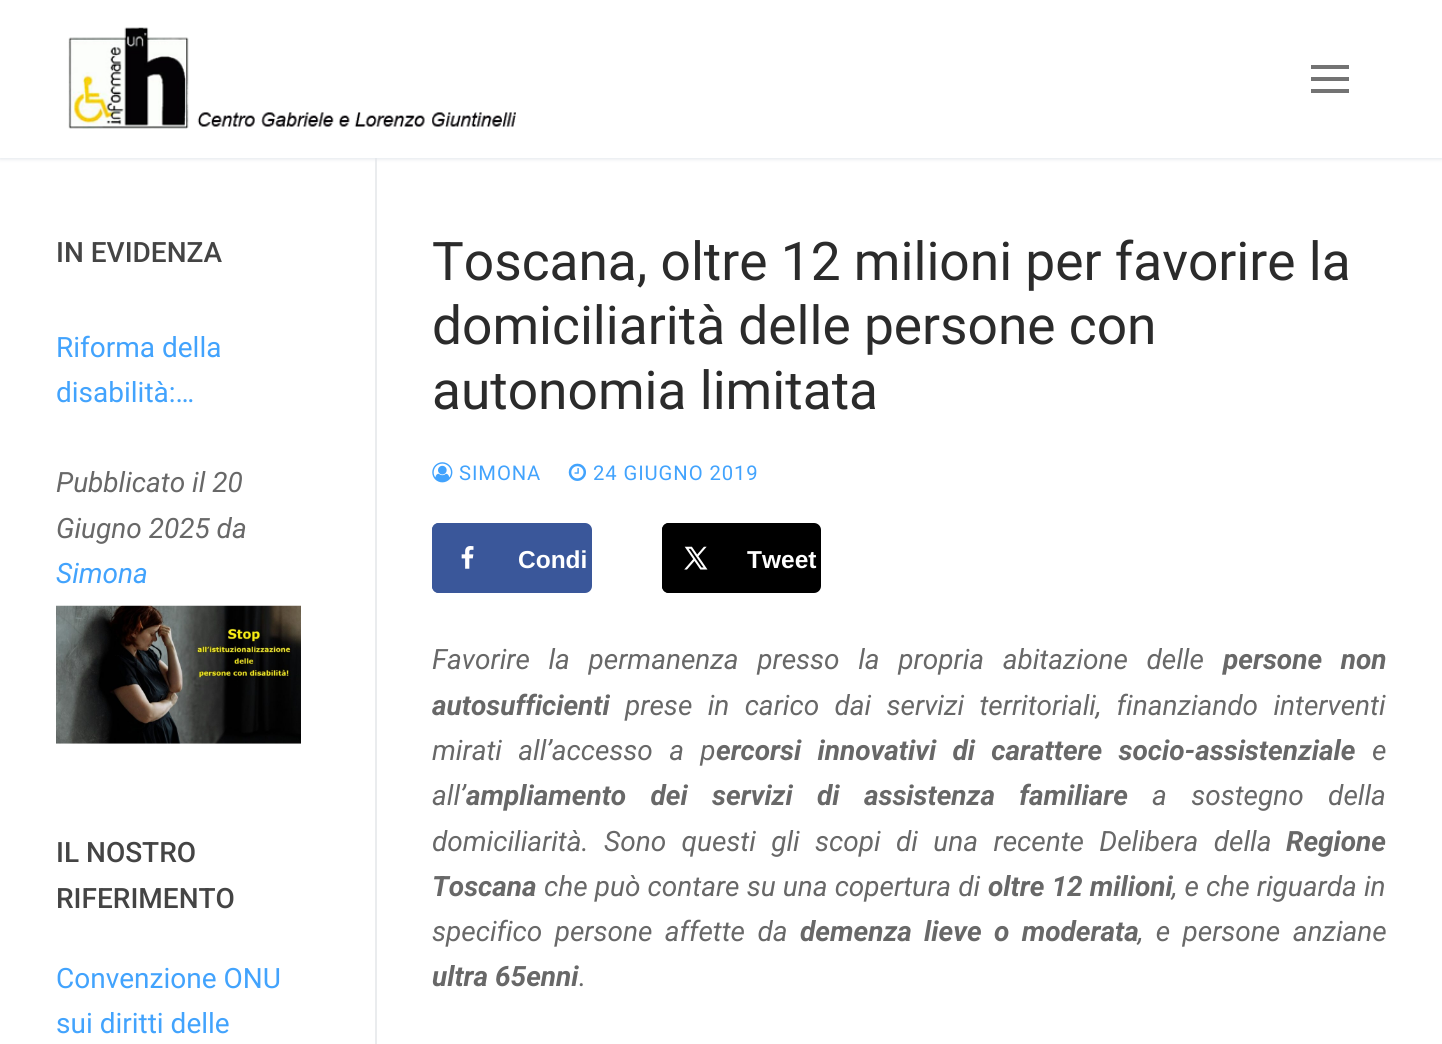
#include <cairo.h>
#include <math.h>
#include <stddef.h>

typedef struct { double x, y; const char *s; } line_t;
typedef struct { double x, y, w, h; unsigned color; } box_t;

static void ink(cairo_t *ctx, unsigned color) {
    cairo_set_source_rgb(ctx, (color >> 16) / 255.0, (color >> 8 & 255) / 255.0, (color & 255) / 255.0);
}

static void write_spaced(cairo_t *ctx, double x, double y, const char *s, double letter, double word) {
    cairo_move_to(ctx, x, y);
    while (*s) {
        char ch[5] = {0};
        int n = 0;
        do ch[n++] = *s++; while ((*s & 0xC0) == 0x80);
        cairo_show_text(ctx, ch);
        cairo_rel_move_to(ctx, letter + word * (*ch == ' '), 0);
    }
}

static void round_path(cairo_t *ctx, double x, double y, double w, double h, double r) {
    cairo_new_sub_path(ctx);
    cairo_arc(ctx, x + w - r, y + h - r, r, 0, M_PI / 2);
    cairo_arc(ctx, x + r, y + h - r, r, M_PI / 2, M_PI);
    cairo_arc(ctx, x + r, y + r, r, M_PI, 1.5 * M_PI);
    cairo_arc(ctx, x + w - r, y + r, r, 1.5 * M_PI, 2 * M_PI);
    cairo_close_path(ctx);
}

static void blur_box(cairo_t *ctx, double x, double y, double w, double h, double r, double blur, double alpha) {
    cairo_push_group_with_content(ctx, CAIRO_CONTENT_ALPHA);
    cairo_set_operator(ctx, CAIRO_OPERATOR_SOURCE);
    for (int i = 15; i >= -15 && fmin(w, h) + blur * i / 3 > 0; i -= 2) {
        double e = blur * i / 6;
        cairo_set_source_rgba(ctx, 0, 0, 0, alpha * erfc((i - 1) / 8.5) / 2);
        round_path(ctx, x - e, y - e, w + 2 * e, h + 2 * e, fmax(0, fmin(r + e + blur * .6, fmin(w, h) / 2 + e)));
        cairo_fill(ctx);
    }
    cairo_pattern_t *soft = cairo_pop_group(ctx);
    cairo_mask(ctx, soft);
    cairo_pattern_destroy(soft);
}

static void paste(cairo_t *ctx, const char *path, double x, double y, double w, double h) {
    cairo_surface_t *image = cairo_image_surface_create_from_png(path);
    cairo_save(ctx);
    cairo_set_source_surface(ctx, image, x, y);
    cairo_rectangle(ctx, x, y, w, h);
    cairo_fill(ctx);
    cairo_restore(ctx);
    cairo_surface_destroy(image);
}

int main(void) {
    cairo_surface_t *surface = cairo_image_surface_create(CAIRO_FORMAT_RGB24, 1442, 1044);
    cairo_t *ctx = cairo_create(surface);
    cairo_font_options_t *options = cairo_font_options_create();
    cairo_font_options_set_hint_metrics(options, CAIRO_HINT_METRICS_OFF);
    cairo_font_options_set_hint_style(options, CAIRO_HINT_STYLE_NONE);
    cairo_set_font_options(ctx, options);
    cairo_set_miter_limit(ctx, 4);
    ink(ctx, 0xFFFFFF);
    cairo_paint(ctx);
    ink(ctx, 0xEAECEE);
    cairo_rectangle(ctx, 375, 158, 2, 886);
    cairo_fill(ctx);
    ink(ctx, 0xE1E5EA);
    blur_box(ctx, 0, 2, 1442, 157, 0, 2, 1);
    ink(ctx, 0xFFFFFF);
    cairo_rectangle(ctx, 0, 0, 1442, 158);
    cairo_fill(ctx);
    paste(ctx, "media/1.png", 68, 27, 448, 102);
    {
        static const box_t items[] = {
            {1311, 77, 38, 4, 0x737373},
            {1311, 65, 38, 4, 0x737373},
            {1311, 89, 38, 4, 0x737373},
        };
        for (size_t i = 0; i < sizeof items / sizeof *items; i++) {
            ink(ctx, items[i].color);
            cairo_rectangle(ctx, items[i].x, items[i].y, items[i].w, items[i].h);
            cairo_fill(ctx);
        }
    }
    cairo_select_font_face(ctx, "Roboto Medium", CAIRO_FONT_SLANT_NORMAL, CAIRO_FONT_WEIGHT_NORMAL);
    cairo_set_font_size(ctx, 28);
    ink(ctx, 0x444444);
    cairo_move_to(ctx, 56, 262);
    cairo_show_text(ctx, "IN EVIDENZA");
    cairo_select_font_face(ctx, "Roboto", CAIRO_FONT_SLANT_NORMAL, CAIRO_FONT_WEIGHT_NORMAL);
    ink(ctx, 0x42A3FD);
    cairo_move_to(ctx, 56, 357);
    cairo_show_text(ctx, "Riforma della");
    cairo_move_to(ctx, 56, 402);
    cairo_show_text(ctx, "disabilità:…");
    cairo_select_font_face(ctx, "Roboto", CAIRO_FONT_SLANT_ITALIC, CAIRO_FONT_WEIGHT_NORMAL);
    ink(ctx, 0x686868);
    cairo_move_to(ctx, 56, 492);
    cairo_show_text(ctx, "Pubblicato il 20");
    cairo_move_to(ctx, 56, 538);
    cairo_show_text(ctx, "Giugno 2025 da");
    ink(ctx, 0x42A3FD);
    cairo_move_to(ctx, 56, 583);
    cairo_show_text(ctx, "Simona");
    paste(ctx, "media/2.png", 56, 605, 245, 139);
    cairo_select_font_face(ctx, "Roboto Medium", CAIRO_FONT_SLANT_NORMAL, CAIRO_FONT_WEIGHT_NORMAL);
    ink(ctx, 0x444444);
    cairo_move_to(ctx, 56, 862);
    cairo_show_text(ctx, "IL NOSTRO");
    cairo_move_to(ctx, 56, 908);
    cairo_show_text(ctx, "RIFERIMENTO");
    cairo_select_font_face(ctx, "Roboto", CAIRO_FONT_SLANT_NORMAL, CAIRO_FONT_WEIGHT_NORMAL);
    ink(ctx, 0x42A3FD);
    cairo_move_to(ctx, 56, 988);
    cairo_show_text(ctx, "Convenzione ONU");
    cairo_move_to(ctx, 56, 1033);
    cairo_show_text(ctx, "sui diritti delle");
    cairo_set_font_size(ctx, 53.25);
    ink(ctx, 0x2B2B2B);
    {
        static const line_t items[] = {
            {432, 280, "Toscana, oltre 12 milioni per favorire la"},
            {432, 344, "domiciliarità delle persone con"},
            {432, 409, "autonomia limitata"},
        };
        for (size_t i = 0; i < sizeof items / sizeof *items; i++) {
            cairo_move_to(ctx, items[i].x, items[i].y);
            cairo_show_text(ctx, items[i].s);
        }
    }
    paste(ctx, "media/3.png", 432, 462, 21, 21);
    cairo_set_font_size(ctx, 20.25);
    ink(ctx, 0x42A3FD);
    write_spaced(ctx, 459, 480, "SIMONA", 0.9, 0);
    paste(ctx, "media/4.png", 568, 463, 18, 18);
    write_spaced(ctx, 593, 480, "24 GIUGNO 2019", 0.9, 0);
    ink(ctx, 0x3A579A);
    round_path(ctx, 434, 525, 156, 66, 5);
    cairo_fill_preserve(ctx);
    cairo_set_line_width(ctx, 4);
    cairo_stroke(ctx);
    cairo_new_path(ctx);
    cairo_move_to(ctx, 439, 525);
    cairo_line_to(ctx, 500, 525);
    cairo_line_to(ctx, 500, 591);
    cairo_line_to(ctx, 439, 591);
    cairo_curve_to(ctx, 436, 591, 434, 589, 434, 586);
    cairo_line_to(ctx, 434, 530);
    cairo_curve_to(ctx, 434, 527, 436, 525, 439, 525);
    cairo_close_path(ctx);
    cairo_fill_preserve(ctx);
    cairo_stroke(ctx);
    paste(ctx, "media/5.png", 461, 546, 13, 23);
    cairo_select_font_face(ctx, "Liberation Sans", CAIRO_FONT_SLANT_NORMAL, CAIRO_FONT_WEIGHT_BOLD);
    cairo_set_font_size(ctx, 24.5);
    ink(ctx, 0xFFFFFF);
    cairo_move_to(ctx, 518, 568);
    cairo_show_text(ctx, "Condi");
    ink(ctx, 0x000000);
    round_path(ctx, 664, 525, 155, 66, 5);
    cairo_fill_preserve(ctx);
    cairo_stroke(ctx);
    cairo_new_path(ctx);
    cairo_move_to(ctx, 669, 525);
    cairo_line_to(ctx, 730, 525);
    cairo_line_to(ctx, 730, 591);
    cairo_line_to(ctx, 669, 591);
    cairo_curve_to(ctx, 666, 591, 664, 589, 664, 586);
    cairo_line_to(ctx, 664, 530);
    cairo_curve_to(ctx, 664, 527, 666, 525, 669, 525);
    cairo_close_path(ctx);
    cairo_fill_preserve(ctx);
    cairo_stroke(ctx);
    paste(ctx, "media/6.png", 684, 546, 24, 24);
    ink(ctx, 0xFFFFFF);
    cairo_move_to(ctx, 747, 568);
    cairo_show_text(ctx, "Tweet");
    cairo_select_font_face(ctx, "Roboto", CAIRO_FONT_SLANT_ITALIC, CAIRO_FONT_WEIGHT_NORMAL);
    cairo_set_font_size(ctx, 28);
    ink(ctx, 0x686868);
    write_spaced(ctx, 432, 669, "Favorire la permanenza presso la propria abitazione delle", 0, 11.75);
    cairo_select_font_face(ctx, "Roboto", CAIRO_FONT_SLANT_ITALIC, CAIRO_FONT_WEIGHT_BOLD);
    write_spaced(ctx, 1223, 669, "persone non", 0, 11.75);
    cairo_move_to(ctx, 432, 715);
    cairo_show_text(ctx, "autosufficienti");
    cairo_select_font_face(ctx, "Roboto", CAIRO_FONT_SLANT_ITALIC, CAIRO_FONT_WEIGHT_NORMAL);
    write_spaced(ctx, 625, 715, "prese in carico dai servizi territoriali, finanziando interventi", 0, 8.5);
    write_spaced(ctx, 432, 760, "mirati all’accesso a p", 0, 9.5);
    cairo_select_font_face(ctx, "Roboto", CAIRO_FONT_SLANT_ITALIC, CAIRO_FONT_WEIGHT_BOLD);
    write_spaced(ctx, 716, 760, "ercorsi innovativi di carattere socio-assistenziale", 0, 9.5);
    cairo_select_font_face(ctx, "Roboto", CAIRO_FONT_SLANT_ITALIC, CAIRO_FONT_WEIGHT_NORMAL);
    cairo_move_to(ctx, 1372, 760);
    cairo_show_text(ctx, "e");
    cairo_move_to(ctx, 432, 805);
    cairo_show_text(ctx, "all’");
    cairo_select_font_face(ctx, "Roboto", CAIRO_FONT_SLANT_ITALIC, CAIRO_FONT_WEIGHT_BOLD);
    write_spaced(ctx, 466, 805, "ampliamento dei servizi di assistenza familiare", 0, 17.5);
    cairo_select_font_face(ctx, "Roboto", CAIRO_FONT_SLANT_ITALIC, CAIRO_FONT_WEIGHT_NORMAL);
    write_spaced(ctx, 1152, 805, "a sostegno della", 0, 17.5);
    write_spaced(ctx, 432, 851, "domiciliarità. Sono questi gli scopi di una recente Delibera della", 0, 8.5);
    cairo_select_font_face(ctx, "Roboto", CAIRO_FONT_SLANT_ITALIC, CAIRO_FONT_WEIGHT_BOLD);
    cairo_move_to(ctx, 1286, 851);
    cairo_show_text(ctx, "Regione");
    cairo_move_to(ctx, 432, 896);
    cairo_show_text(ctx, "Toscana");
    cairo_select_font_face(ctx, "Roboto", CAIRO_FONT_SLANT_ITALIC, CAIRO_FONT_WEIGHT_NORMAL);
    write_spaced(ctx, 544, 896, "che può contare su una copertura di", 0, 0.25);
    cairo_select_font_face(ctx, "Roboto", CAIRO_FONT_SLANT_ITALIC, CAIRO_FONT_WEIGHT_BOLD);
    write_spaced(ctx, 988, 896, "oltre 12 milioni", 0, 0.25);
    cairo_select_font_face(ctx, "Roboto", CAIRO_FONT_SLANT_ITALIC, CAIRO_FONT_WEIGHT_NORMAL);
    write_spaced(ctx, 1172, 896, ", e che riguarda in", 0, 0.25);
    write_spaced(ctx, 432, 941, "specifico persone affette da", 0, 5.5);
    cairo_select_font_face(ctx, "Roboto", CAIRO_FONT_SLANT_ITALIC, CAIRO_FONT_WEIGHT_BOLD);
    write_spaced(ctx, 800, 941, "demenza lieve o moderata", 0, 5.5);
    cairo_select_font_face(ctx, "Roboto", CAIRO_FONT_SLANT_ITALIC, CAIRO_FONT_WEIGHT_NORMAL);
    write_spaced(ctx, 1138, 941, ", e persone anziane", 0, 5.5);
    cairo_select_font_face(ctx, "Roboto", CAIRO_FONT_SLANT_ITALIC, CAIRO_FONT_WEIGHT_BOLD);
    cairo_move_to(ctx, 432, 986);
    cairo_show_text(ctx, "ultra 65enni");
    cairo_select_font_face(ctx, "Roboto", CAIRO_FONT_SLANT_ITALIC, CAIRO_FONT_WEIGHT_NORMAL);
    cairo_move_to(ctx, 579, 986);
    cairo_show_text(ctx, ".");
    cairo_surface_write_to_png(surface, "image.png");
    cairo_font_options_destroy(options);
    cairo_destroy(ctx);
    cairo_surface_destroy(surface);
    return 0;
}
